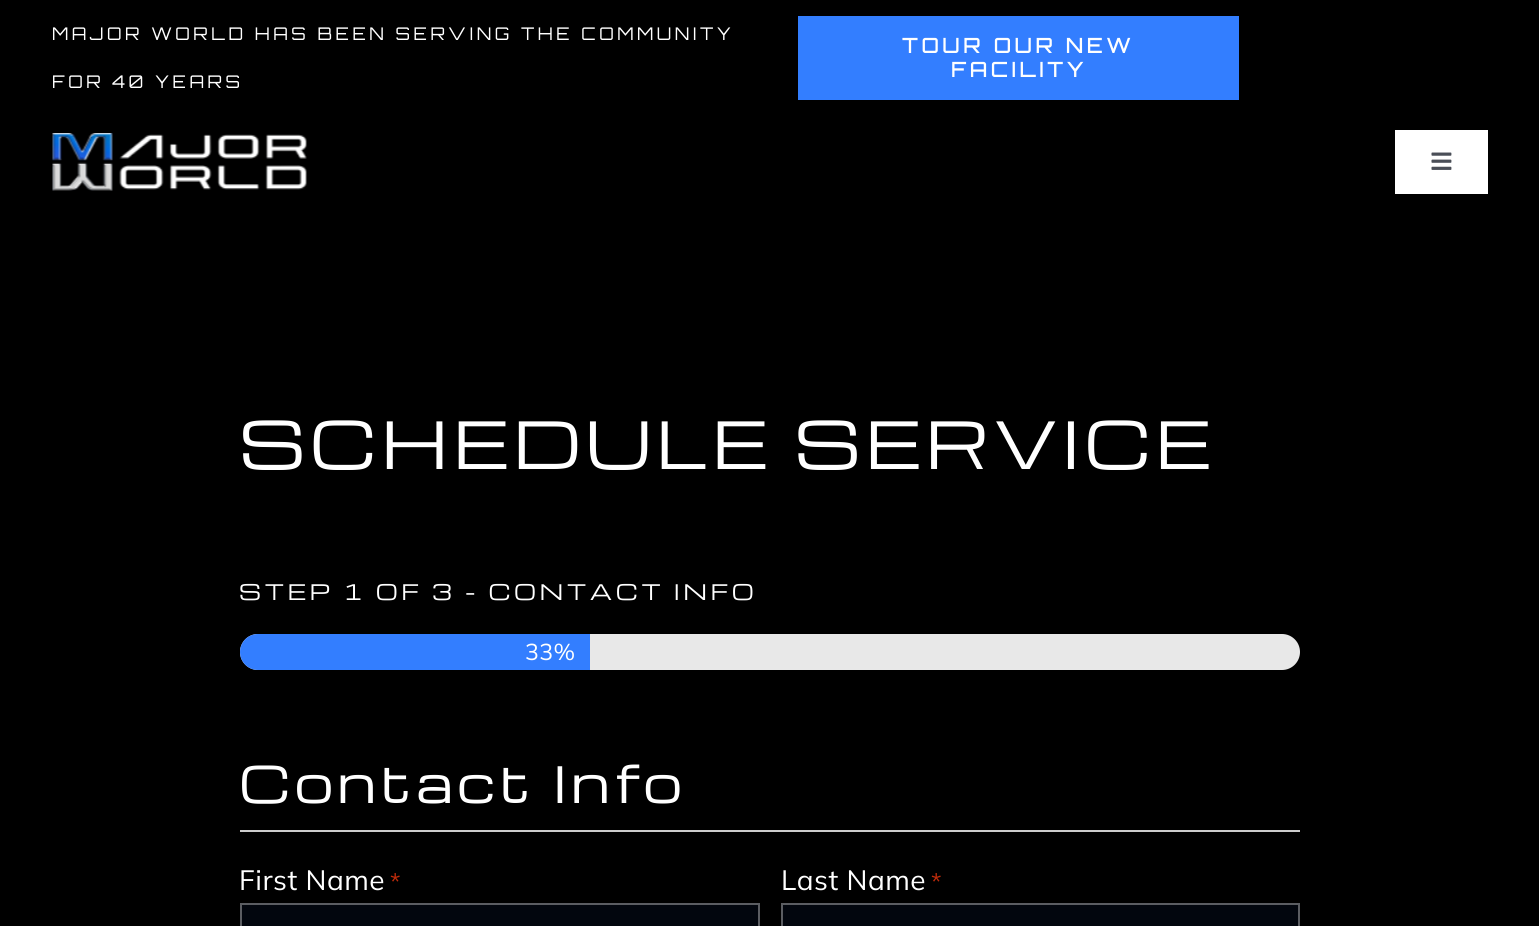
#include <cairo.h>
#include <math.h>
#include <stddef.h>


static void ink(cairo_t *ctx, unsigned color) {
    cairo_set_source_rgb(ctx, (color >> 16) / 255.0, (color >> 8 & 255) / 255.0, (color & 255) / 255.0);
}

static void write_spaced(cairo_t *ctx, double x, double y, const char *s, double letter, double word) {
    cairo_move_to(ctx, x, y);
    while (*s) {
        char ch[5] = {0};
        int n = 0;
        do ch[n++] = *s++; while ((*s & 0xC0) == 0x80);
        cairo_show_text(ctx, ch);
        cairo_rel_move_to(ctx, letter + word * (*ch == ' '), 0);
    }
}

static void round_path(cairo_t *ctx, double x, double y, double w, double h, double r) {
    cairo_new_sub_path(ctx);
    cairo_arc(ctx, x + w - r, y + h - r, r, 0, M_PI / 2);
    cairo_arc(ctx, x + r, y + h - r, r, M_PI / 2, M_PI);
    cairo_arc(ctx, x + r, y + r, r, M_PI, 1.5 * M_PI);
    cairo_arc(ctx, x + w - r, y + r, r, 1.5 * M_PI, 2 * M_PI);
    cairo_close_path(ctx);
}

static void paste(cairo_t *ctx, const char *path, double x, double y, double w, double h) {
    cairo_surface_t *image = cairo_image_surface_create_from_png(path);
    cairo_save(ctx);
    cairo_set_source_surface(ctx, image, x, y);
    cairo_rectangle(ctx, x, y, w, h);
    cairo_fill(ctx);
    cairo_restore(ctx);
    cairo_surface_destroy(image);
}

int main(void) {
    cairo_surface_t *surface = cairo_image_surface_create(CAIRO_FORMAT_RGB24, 1539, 926);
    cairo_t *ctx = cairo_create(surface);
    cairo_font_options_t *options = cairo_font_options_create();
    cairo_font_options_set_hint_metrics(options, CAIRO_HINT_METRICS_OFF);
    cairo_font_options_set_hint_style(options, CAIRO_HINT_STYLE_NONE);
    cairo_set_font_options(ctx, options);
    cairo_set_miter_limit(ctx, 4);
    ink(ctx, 0x000000);
    cairo_paint(ctx);
    cairo_select_font_face(ctx, "Orbitron", CAIRO_FONT_SLANT_NORMAL, CAIRO_FONT_WEIGHT_NORMAL);
    cairo_set_font_size(ctx, 17.5);
    ink(ctx, 0xFFFFFF);
    write_spaced(ctx, 52, 40, "MAJOR WORLD HAS BEEN SERVING THE COMMUNITY", 3.5, 0);
    write_spaced(ctx, 52, 88, "FOR 40 YEARS", 3.5, 0);
    ink(ctx, 0x337EFF);
    cairo_rectangle(ctx, 798, 16, 441, 84);
    cairo_fill(ctx);
    cairo_select_font_face(ctx, "Orbitron Medium", CAIRO_FONT_SLANT_NORMAL, CAIRO_FONT_WEIGHT_NORMAL);
    cairo_set_font_size(ctx, 21);
    ink(ctx, 0xFFFFFF);
    write_spaced(ctx, 902, 53, "TOUR OUR NEW", 3.5, 0);
    write_spaced(ctx, 951, 77, "FACILITY", 3.5, 0);
    paste(ctx, "media/1.png", 52, 133, 255, 58);
    cairo_rectangle(ctx, 1395, 130, 93, 64);
    cairo_fill(ctx);
    paste(ctx, "media/2.png", 1431, 152, 21, 18);
    cairo_select_font_face(ctx, "Michroma", CAIRO_FONT_SLANT_NORMAL, CAIRO_FONT_WEIGHT_NORMAL);
    cairo_set_font_size(ctx, 63.5);
    write_spaced(ctx, 239, 469, "SCHEDULE SERVICE", 4.4, 0);
    cairo_set_font_size(ctx, 21);
    write_spaced(ctx, 239, 600, "STEP 1 OF 3 - CONTACT INFO", 3.5, 0);
    ink(ctx, 0xE8E8E8);
    round_path(ctx, 240, 634, 1060, 36, 18);
    cairo_fill(ctx);
    ink(ctx, 0x337EFF);
    cairo_new_path(ctx);
    cairo_move_to(ctx, 258, 634);
    cairo_line_to(ctx, 590, 634);
    cairo_line_to(ctx, 590, 670);
    cairo_line_to(ctx, 258, 670);
    cairo_curve_to(ctx, 248, 670, 240, 662, 240, 652);
    cairo_curve_to(ctx, 240, 642, 248, 634, 258, 634);
    cairo_close_path(ctx);
    cairo_fill(ctx);
    cairo_select_font_face(ctx, "Mulish", CAIRO_FONT_SLANT_NORMAL, CAIRO_FONT_WEIGHT_NORMAL);
    cairo_set_font_size(ctx, 23);
    ink(ctx, 0xFFFFFF);
    write_spaced(ctx, 525, 660, "33%", 0.5, 0);
    ink(ctx, 0xCCCCCC);
    cairo_rectangle(ctx, 240, 830, 1060, 2);
    cairo_fill(ctx);
    cairo_select_font_face(ctx, "Michroma", CAIRO_FONT_SLANT_NORMAL, CAIRO_FONT_WEIGHT_NORMAL);
    cairo_set_font_size(ctx, 49);
    ink(ctx, 0xFFFFFF);
    write_spaced(ctx, 239, 803, "Contact Info", 4.4, 0);
    cairo_select_font_face(ctx, "Mulish", CAIRO_FONT_SLANT_NORMAL, CAIRO_FONT_WEIGHT_NORMAL);
    cairo_set_font_size(ctx, 28);
    write_spaced(ctx, 239, 890, "First Name", 0.5, 0);
    cairo_set_font_size(ctx, 23);
    ink(ctx, 0xC02B0A);
    write_spaced(ctx, 390, 890, "*", 0.5, 0);
    ink(ctx, 0x02060E);
    cairo_rectangle(ctx, 241, 904, 518, 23);
    cairo_fill_preserve(ctx);
    ink(ctx, 0x5B5D62);
    cairo_stroke(ctx);
    cairo_set_font_size(ctx, 28);
    ink(ctx, 0xFFFFFF);
    write_spaced(ctx, 781, 890, "Last Name", 0.5, 0);
    cairo_set_font_size(ctx, 23);
    ink(ctx, 0xC02B0A);
    write_spaced(ctx, 931, 890, "*", 0.5, 0);
    ink(ctx, 0x02060E);
    cairo_rectangle(ctx, 782, 904, 517, 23);
    cairo_fill_preserve(ctx);
    ink(ctx, 0x5B5D62);
    cairo_stroke(ctx);
    cairo_surface_write_to_png(surface, "image.png");
    cairo_font_options_destroy(options);
    cairo_destroy(ctx);
    cairo_surface_destroy(surface);
    return 0;
}
